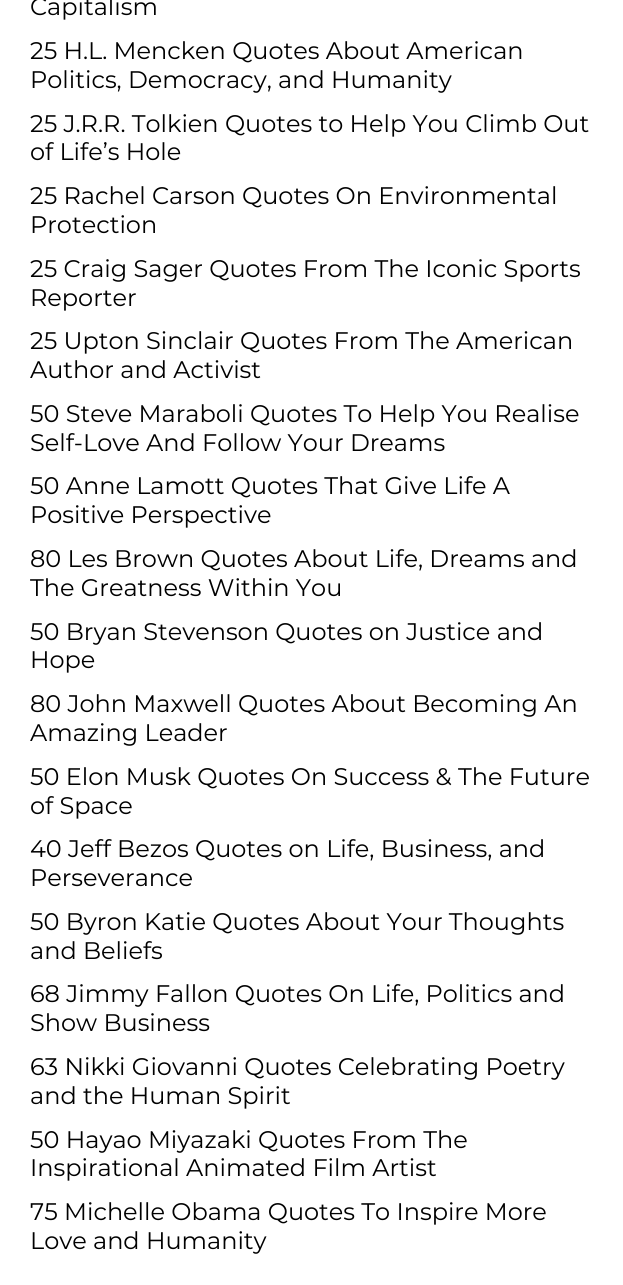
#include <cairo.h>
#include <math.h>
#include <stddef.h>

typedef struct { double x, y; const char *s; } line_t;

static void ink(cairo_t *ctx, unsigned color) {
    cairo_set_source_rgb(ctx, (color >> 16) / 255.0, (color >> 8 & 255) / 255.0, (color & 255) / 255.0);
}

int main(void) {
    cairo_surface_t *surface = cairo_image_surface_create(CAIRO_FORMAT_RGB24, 623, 1285);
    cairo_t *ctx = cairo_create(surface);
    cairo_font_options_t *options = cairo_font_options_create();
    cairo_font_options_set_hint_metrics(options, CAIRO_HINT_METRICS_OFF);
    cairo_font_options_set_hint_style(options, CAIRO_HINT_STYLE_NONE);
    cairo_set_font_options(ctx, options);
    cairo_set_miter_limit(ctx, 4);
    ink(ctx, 0xFFFFFF);
    cairo_paint(ctx);
    cairo_select_font_face(ctx, "Montserrat", CAIRO_FONT_SLANT_NORMAL, CAIRO_FONT_WEIGHT_NORMAL);
    cairo_set_font_size(ctx, 24);
    ink(ctx, 0x000000);
    {
        static const line_t items[] = {
            {30, 15, "Capitalism"},
            {30, 59, "25 H.L. Mencken Quotes About American"},
            {30, 88, "Politics, Democracy, and Humanity"},
            {30, 132, "25 J.R.R. Tolkien Quotes to Help You Climb Out"},
            {30, 160, "of Life’s Hole"},
            {30, 204, "25 Rachel Carson Quotes On Environmental"},
            {30, 233, "Protection"},
            {30, 277, "25 Craig Sager Quotes From The Iconic Sports"},
            {30, 306, "Reporter"},
            {30, 349, "25 Upton Sinclair Quotes From The American"},
            {30, 378, "Author and Activist"},
            {30, 422, "50 Steve Maraboli Quotes To Help You Realise"},
            {30, 451, "Self-Love And Follow Your Dreams"},
            {30, 494, "50 Anne Lamott Quotes That Give Life A"},
            {30, 523, "Positive Perspective"},
            {30, 567, "80 Les Brown Quotes About Life, Dreams and"},
            {30, 596, "The Greatness Within You"},
            {30, 640, "50 Bryan Stevenson Quotes on Justice and"},
            {30, 668, "Hope"},
            {30, 712, "80 John Maxwell Quotes About Becoming An"},
            {30, 741, "Amazing Leader"},
            {30, 785, "50 Elon Musk Quotes On Success & The Future"},
            {30, 814, "of Space"},
            {30, 857, "40 Jeff Bezos Quotes on Life, Business, and"},
            {30, 886, "Perseverance"},
            {30, 930, "50 Byron Katie Quotes About Your Thoughts"},
            {30, 959, "and Beliefs"},
            {30, 1002, "68 Jimmy Fallon Quotes On Life, Politics and"},
            {30, 1031, "Show Business"},
            {30, 1075, "63 Nikki Giovanni Quotes Celebrating Poetry"},
            {30, 1104, "and the Human Spirit"},
            {30, 1148, "50 Hayao Miyazaki Quotes From The"},
            {30, 1176, "Inspirational Animated Film Artist"},
            {30, 1220, "75 Michelle Obama Quotes To Inspire More"},
            {30, 1249, "Love and Humanity"},
        };
        for (size_t i = 0; i < sizeof items / sizeof *items; i++) {
            cairo_move_to(ctx, items[i].x, items[i].y);
            cairo_show_text(ctx, items[i].s);
        }
    }
    cairo_surface_write_to_png(surface, "image.png");
    cairo_font_options_destroy(options);
    cairo_destroy(ctx);
    cairo_surface_destroy(surface);
    return 0;
}
